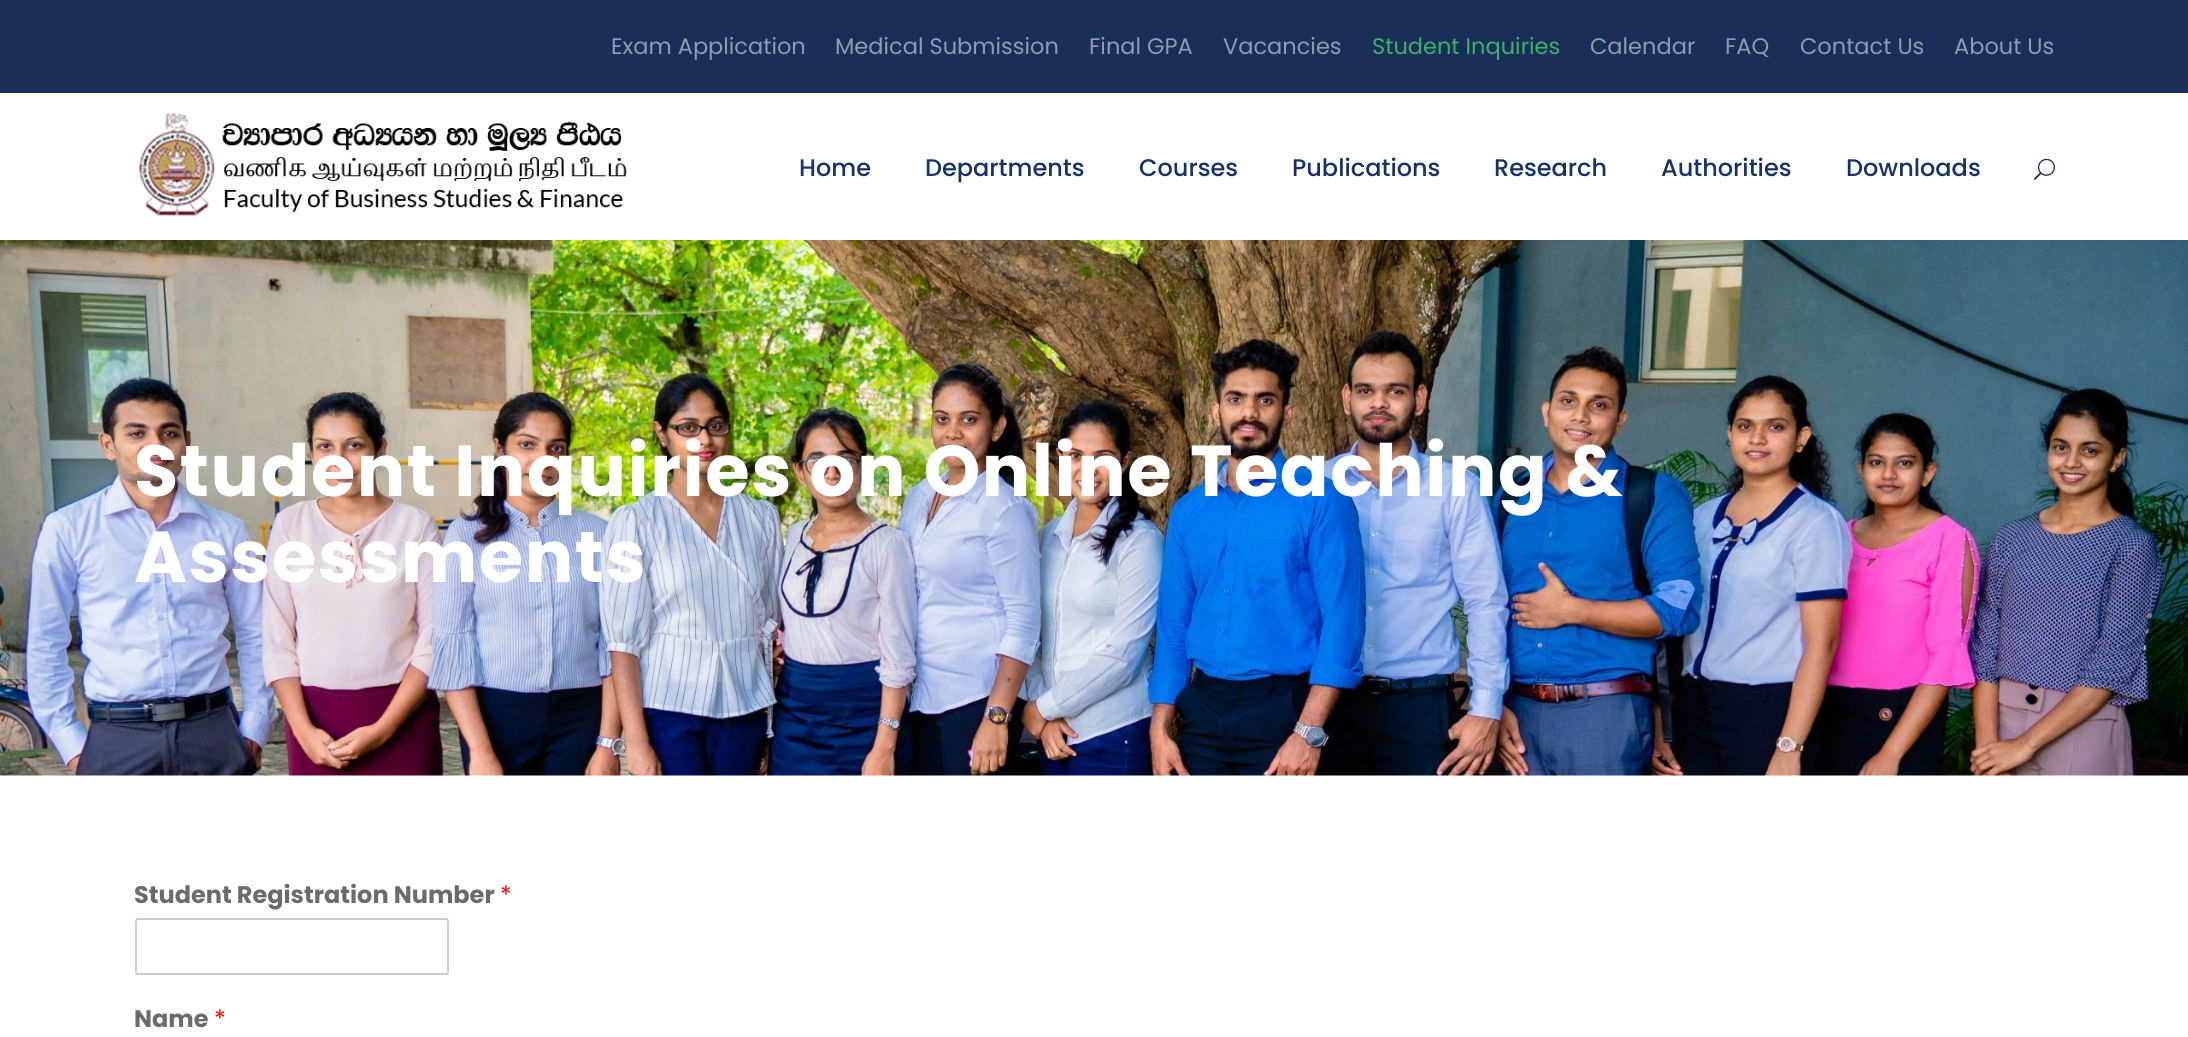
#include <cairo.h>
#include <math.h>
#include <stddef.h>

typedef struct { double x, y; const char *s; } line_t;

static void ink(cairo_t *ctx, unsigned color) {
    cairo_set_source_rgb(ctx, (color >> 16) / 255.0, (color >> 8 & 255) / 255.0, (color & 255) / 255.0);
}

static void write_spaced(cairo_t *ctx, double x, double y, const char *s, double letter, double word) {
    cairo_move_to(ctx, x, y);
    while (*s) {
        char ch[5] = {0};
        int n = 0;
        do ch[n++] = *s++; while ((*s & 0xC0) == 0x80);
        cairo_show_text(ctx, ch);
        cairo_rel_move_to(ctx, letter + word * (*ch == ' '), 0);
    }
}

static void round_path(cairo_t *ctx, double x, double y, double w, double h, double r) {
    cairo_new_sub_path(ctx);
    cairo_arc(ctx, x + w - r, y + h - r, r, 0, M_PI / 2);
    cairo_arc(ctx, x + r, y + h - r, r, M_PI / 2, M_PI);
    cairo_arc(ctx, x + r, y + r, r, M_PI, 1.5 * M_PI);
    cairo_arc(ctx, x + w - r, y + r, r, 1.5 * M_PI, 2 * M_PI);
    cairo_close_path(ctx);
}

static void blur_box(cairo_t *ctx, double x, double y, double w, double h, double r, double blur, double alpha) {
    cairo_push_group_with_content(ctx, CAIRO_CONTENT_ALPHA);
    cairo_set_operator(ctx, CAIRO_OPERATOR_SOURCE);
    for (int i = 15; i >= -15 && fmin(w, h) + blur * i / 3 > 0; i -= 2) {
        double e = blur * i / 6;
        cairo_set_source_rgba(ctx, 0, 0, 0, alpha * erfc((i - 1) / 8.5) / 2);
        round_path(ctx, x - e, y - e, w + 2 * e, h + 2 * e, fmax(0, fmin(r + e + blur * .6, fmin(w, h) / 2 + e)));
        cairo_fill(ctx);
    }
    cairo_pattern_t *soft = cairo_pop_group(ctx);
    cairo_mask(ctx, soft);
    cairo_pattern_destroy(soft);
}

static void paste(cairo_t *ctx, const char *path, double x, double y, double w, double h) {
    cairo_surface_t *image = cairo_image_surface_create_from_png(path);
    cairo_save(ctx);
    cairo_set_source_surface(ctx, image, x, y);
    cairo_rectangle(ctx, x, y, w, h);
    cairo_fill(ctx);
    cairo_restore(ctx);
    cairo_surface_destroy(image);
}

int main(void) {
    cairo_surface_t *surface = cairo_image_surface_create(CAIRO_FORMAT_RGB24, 2188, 1037);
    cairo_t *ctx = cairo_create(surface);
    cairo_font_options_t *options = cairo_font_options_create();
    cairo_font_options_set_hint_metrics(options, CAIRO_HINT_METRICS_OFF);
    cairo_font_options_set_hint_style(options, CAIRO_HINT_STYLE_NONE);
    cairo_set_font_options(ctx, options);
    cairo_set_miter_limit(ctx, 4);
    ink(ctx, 0xFFFFFF);
    cairo_paint(ctx);
    ink(ctx, 0x192F59);
    cairo_rectangle(ctx, 0, 0, 2188, 93);
    cairo_fill(ctx);
    cairo_select_font_face(ctx, "Poppins", CAIRO_FONT_SLANT_NORMAL, CAIRO_FONT_WEIGHT_NORMAL);
    cairo_set_font_size(ctx, 22.5);
    ink(ctx, 0x919BAD);
    {
        static const line_t items[] = {
            {611, 54, "Exam Application"},
            {835, 54, "Medical Submission"},
            {1089, 54, "Final GPA"},
            {1223, 54, "Vacancies"},
        };
        for (size_t i = 0; i < sizeof items / sizeof *items; i++) {
            cairo_move_to(ctx, items[i].x, items[i].y);
            cairo_show_text(ctx, items[i].s);
        }
    }
    ink(ctx, 0x3DB166);
    cairo_move_to(ctx, 1372, 54);
    cairo_show_text(ctx, "Student Inquiries");
    ink(ctx, 0x919BAD);
    {
        static const line_t items[] = {
            {1590, 54, "Calendar"},
            {1725, 54, "FAQ"},
            {1800, 54, "Contact Us"},
            {1954, 54, "About Us"},
        };
        for (size_t i = 0; i < sizeof items / sizeof *items; i++) {
            cairo_move_to(ctx, items[i].x, items[i].y);
            cairo_show_text(ctx, items[i].s);
        }
    }
    cairo_save(ctx);
    cairo_rectangle(ctx, 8, 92, 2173, 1);
    cairo_clip(ctx);
    ink(ctx, 0x000000);
    blur_box(ctx, 0, 95, 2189, 147, 0, 3, 0.1);
    cairo_restore(ctx);
    paste(ctx, "media/1.png", 139, 112, 488, 104);
    cairo_select_font_face(ctx, "Poppins Medium", CAIRO_FONT_SLANT_NORMAL, CAIRO_FONT_WEIGHT_NORMAL);
    cairo_set_font_size(ctx, 24);
    ink(ctx, 0x163269);
    {
        static const line_t items[] = {
            {799, 176, "Home"},
            {925, 176, "Departments"},
            {1139, 176, "Courses"},
            {1292, 176, "Publications"},
            {1494, 176, "Research"},
            {1661, 176, "Authorities"},
            {1846, 176, "Downloads"},
        };
        for (size_t i = 0; i < sizeof items / sizeof *items; i++) {
            cairo_move_to(ctx, items[i].x, items[i].y);
            cairo_show_text(ctx, items[i].s);
        }
    }
    paste(ctx, "media/2.png", 2034, 158, 21, 22);
    paste(ctx, "media/3.png", 0, 240, 2188, 536);
    cairo_select_font_face(ctx, "Poppins", CAIRO_FONT_SLANT_NORMAL, CAIRO_FONT_WEIGHT_BOLD);
    cairo_set_font_size(ctx, 72);
    ink(ctx, 0xFFFFFF);
    write_spaced(ctx, 134, 496, "Student Inquiries on Online Teaching &", 1.5, 0);
    write_spaced(ctx, 134, 582, "Assessments", 1.5, 0);
    cairo_set_font_size(ctx, 24);
    ink(ctx, 0x6B6B6B);
    cairo_move_to(ctx, 134, 903);
    cairo_show_text(ctx, "Student Registration Number");
    cairo_select_font_face(ctx, "Poppins", CAIRO_FONT_SLANT_NORMAL, CAIRO_FONT_WEIGHT_NORMAL);
    ink(ctx, 0xFF0000);
    cairo_move_to(ctx, 500, 903);
    cairo_show_text(ctx, "*");
    round_path(ctx, 136, 919, 312, 55, 2);
    ink(ctx, 0xCCCCCC);
    cairo_stroke(ctx);
    cairo_select_font_face(ctx, "Poppins", CAIRO_FONT_SLANT_NORMAL, CAIRO_FONT_WEIGHT_BOLD);
    ink(ctx, 0x6B6B6B);
    cairo_move_to(ctx, 134, 1027);
    cairo_show_text(ctx, "Name");
    cairo_select_font_face(ctx, "Poppins", CAIRO_FONT_SLANT_NORMAL, CAIRO_FONT_WEIGHT_NORMAL);
    ink(ctx, 0xFF0000);
    cairo_move_to(ctx, 214, 1027);
    cairo_show_text(ctx, "*");
    cairo_surface_write_to_png(surface, "image.png");
    cairo_font_options_destroy(options);
    cairo_destroy(ctx);
    cairo_surface_destroy(surface);
    return 0;
}
